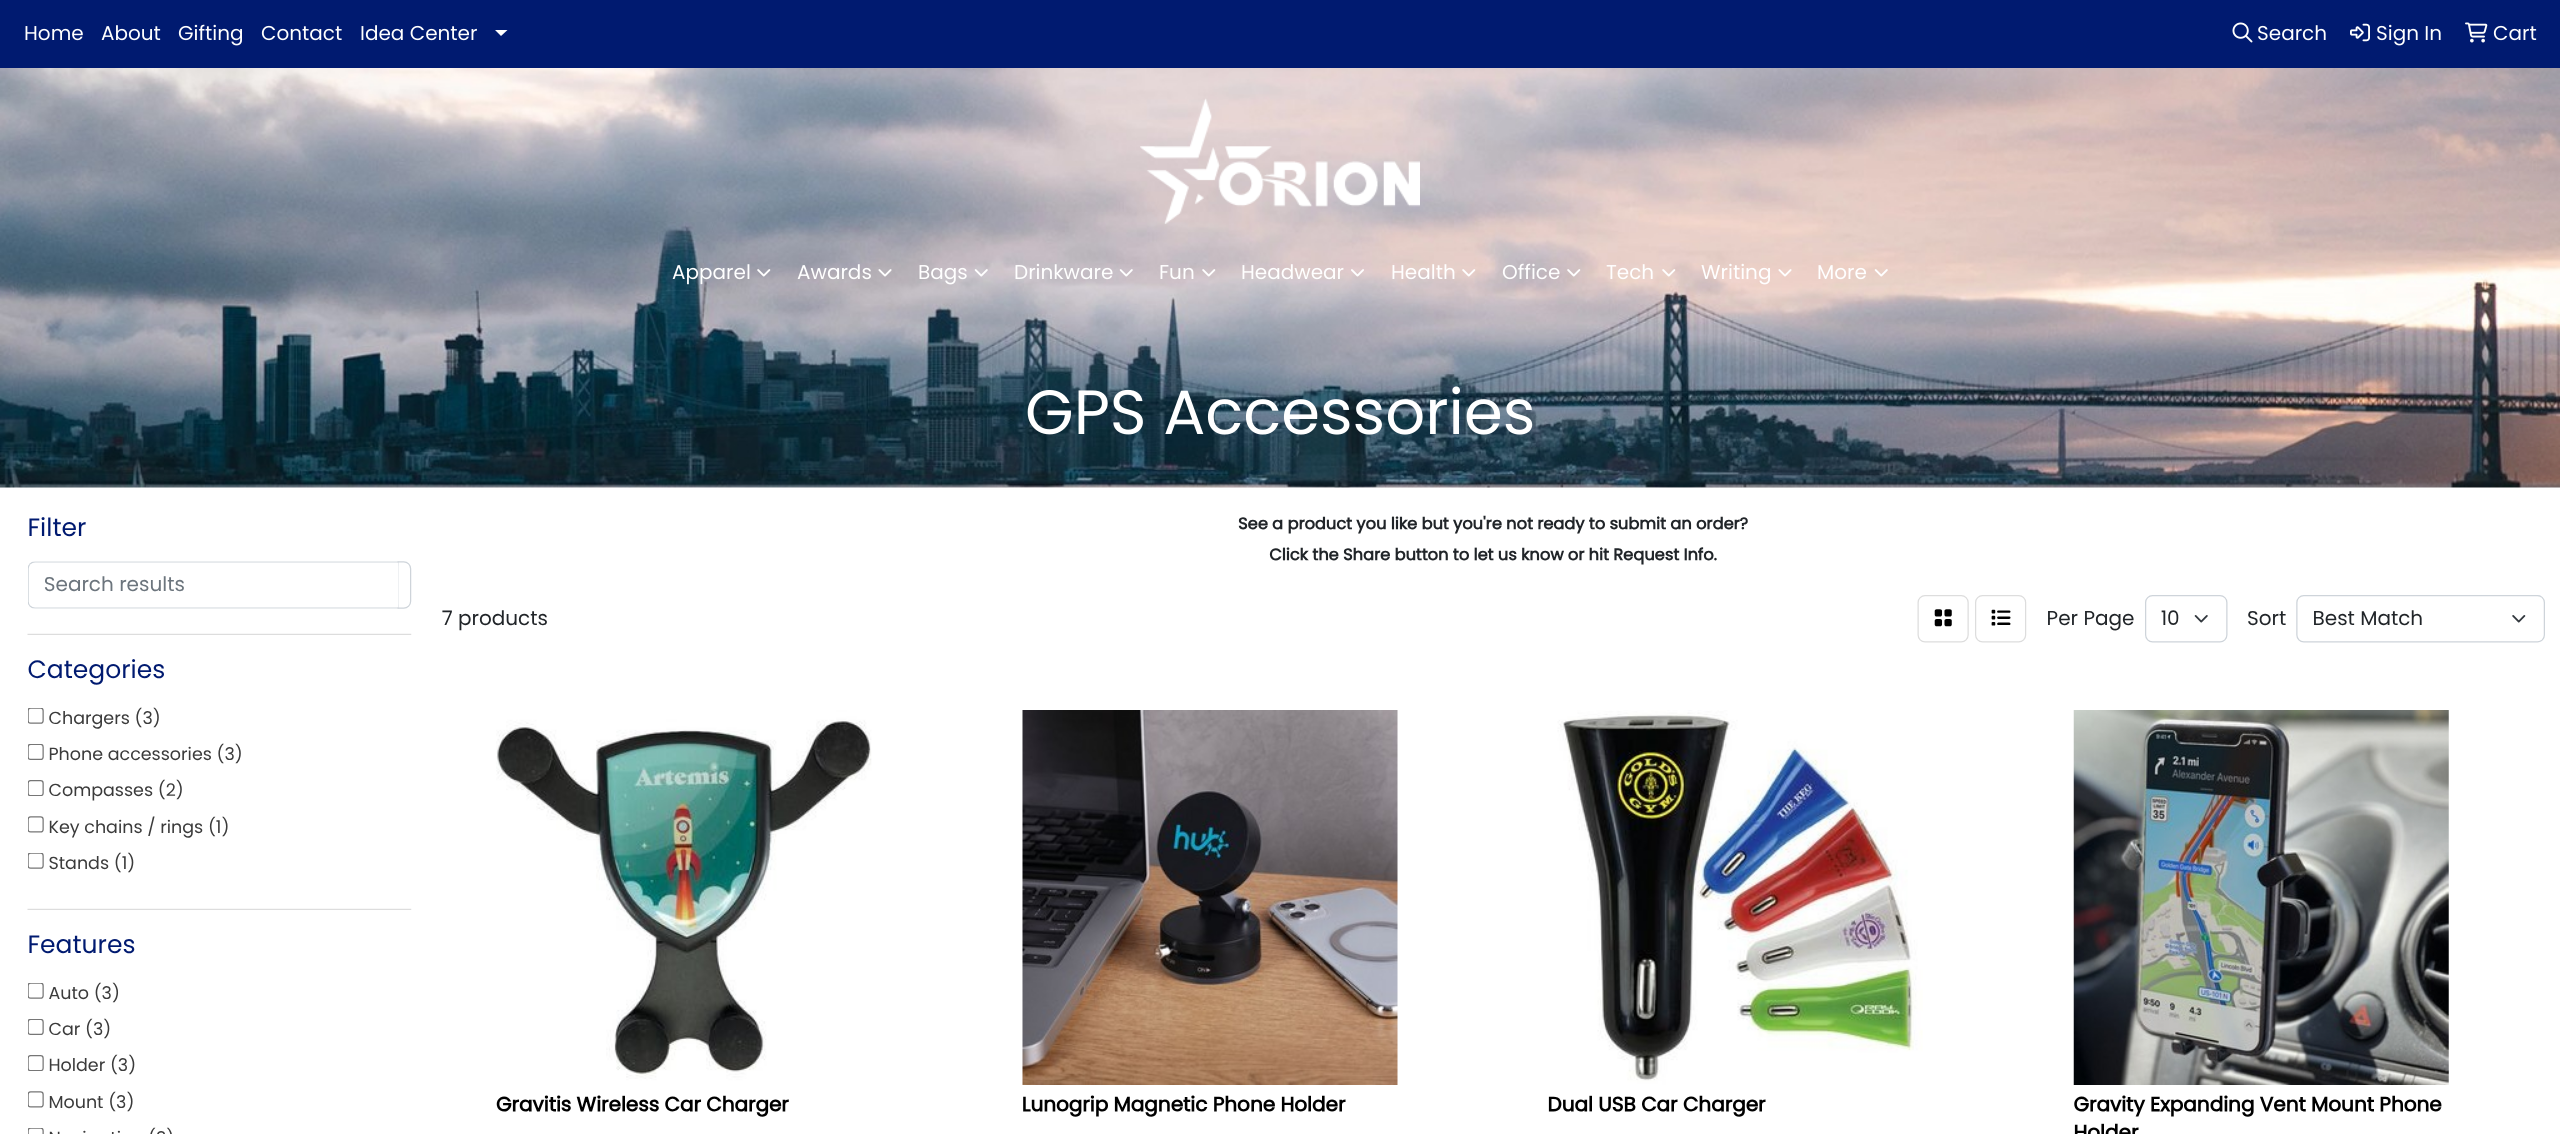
#include <cairo.h>
#include <math.h>
#include <stddef.h>

typedef struct { double x, y; const char *s; } line_t;

static void ink(cairo_t *ctx, unsigned color) {
    cairo_set_source_rgb(ctx, (color >> 16) / 255.0, (color >> 8 & 255) / 255.0, (color & 255) / 255.0);
}

static void paste(cairo_t *ctx, const char *path, double x, double y, double w, double h) {
    cairo_surface_t *image = cairo_image_surface_create_from_png(path);
    cairo_save(ctx);
    cairo_set_source_surface(ctx, image, x, y);
    cairo_rectangle(ctx, x, y, w, h);
    cairo_fill(ctx);
    cairo_restore(ctx);
    cairo_surface_destroy(image);
}

int main(void) {
    cairo_surface_t *surface = cairo_image_surface_create(CAIRO_FORMAT_RGB24, 2560, 1134);
    cairo_t *ctx = cairo_create(surface);
    cairo_font_options_t *options = cairo_font_options_create();
    cairo_font_options_set_hint_metrics(options, CAIRO_HINT_METRICS_OFF);
    cairo_font_options_set_hint_style(options, CAIRO_HINT_STYLE_NONE);
    cairo_set_font_options(ctx, options);
    cairo_set_miter_limit(ctx, 4);
    ink(ctx, 0xFFFFFF);
    cairo_paint(ctx);
    ink(ctx, 0x001A70);
    cairo_rectangle(ctx, 0, 0, 2560, 68);
    cairo_fill(ctx);
    cairo_select_font_face(ctx, "Poppins", CAIRO_FONT_SLANT_NORMAL, CAIRO_FONT_WEIGHT_NORMAL);
    cairo_set_font_size(ctx, 20);
    ink(ctx, 0xFFFFFF);
    {
        static const line_t items[] = {
            {24, 40, "Home"},
            {101, 40, "About"},
            {178, 40, "Gifting"},
            {261, 40, "Contact"},
            {360, 40, "Idea Center"},
        };
        for (size_t i = 0; i < sizeof items / sizeof *items; i++) {
            cairo_move_to(ctx, items[i].x, items[i].y);
            cairo_show_text(ctx, items[i].s);
        }
    }
    cairo_new_path(ctx);
    cairo_move_to(ctx, 495, 30);
    cairo_line_to(ctx, 507.5, 30);
    cairo_line_to(ctx, 501, 36);
    cairo_close_path(ctx);
    cairo_fill(ctx);
    paste(ctx, "media/1.png", 2232, 22, 21, 21);
    cairo_move_to(ctx, 2257, 40);
    cairo_show_text(ctx, "Search");
    paste(ctx, "media/2.png", 2350, 23, 20, 19);
    cairo_move_to(ctx, 2376, 40);
    cairo_show_text(ctx, "Sign In");
    paste(ctx, "media/3.png", 2465, 22, 23, 21);
    cairo_move_to(ctx, 2493, 40);
    cairo_show_text(ctx, "Cart");
    paste(ctx, "media/16.png", 0, 68, 2560, 420);
    paste(ctx, "media/4.png", 1140, 98, 280, 126);
    cairo_move_to(ctx, 672, 279);
    cairo_show_text(ctx, "Apparel");
    paste(ctx, "media/5.png", 757, 269, 14, 8);
    cairo_move_to(ctx, 797, 279);
    cairo_show_text(ctx, "Awards");
    paste(ctx, "media/6.png", 878, 269, 14, 8);
    cairo_move_to(ctx, 918, 279);
    cairo_show_text(ctx, "Bags");
    paste(ctx, "media/7.png", 974, 269, 14, 8);
    cairo_move_to(ctx, 1014, 279);
    cairo_show_text(ctx, "Drinkware");
    paste(ctx, "media/8.png", 1119, 269, 14, 8);
    cairo_move_to(ctx, 1159, 279);
    cairo_show_text(ctx, "Fun");
    paste(ctx, "media/9.png", 1202, 269, 14, 8);
    cairo_move_to(ctx, 1241, 279);
    cairo_show_text(ctx, "Headwear");
    paste(ctx, "media/10.png", 1351, 269, 13, 8);
    cairo_move_to(ctx, 1391, 279);
    cairo_show_text(ctx, "Health");
    paste(ctx, "media/11.png", 1462, 269, 14, 8);
    cairo_move_to(ctx, 1502, 279);
    cairo_show_text(ctx, "Office");
    paste(ctx, "media/12.png", 1567, 269, 14, 8);
    cairo_move_to(ctx, 1606, 279);
    cairo_show_text(ctx, "Tech");
    paste(ctx, "media/13.png", 1662, 269, 14, 8);
    cairo_move_to(ctx, 1701, 279);
    cairo_show_text(ctx, "Writing");
    paste(ctx, "media/14.png", 1778, 269, 14, 8);
    cairo_move_to(ctx, 1817, 279);
    cairo_show_text(ctx, "More");
    paste(ctx, "media/15.png", 1874, 269, 14, 8);
    cairo_set_font_size(ctx, 62.5);
    cairo_move_to(ctx, 1025, 434);
    cairo_show_text(ctx, "GPS Accessories");
    paste(ctx, "media/17.png", 27, 515, 2518, 619);
    cairo_surface_write_to_png(surface, "image.png");
    cairo_font_options_destroy(options);
    cairo_destroy(ctx);
    cairo_surface_destroy(surface);
    return 0;
}
